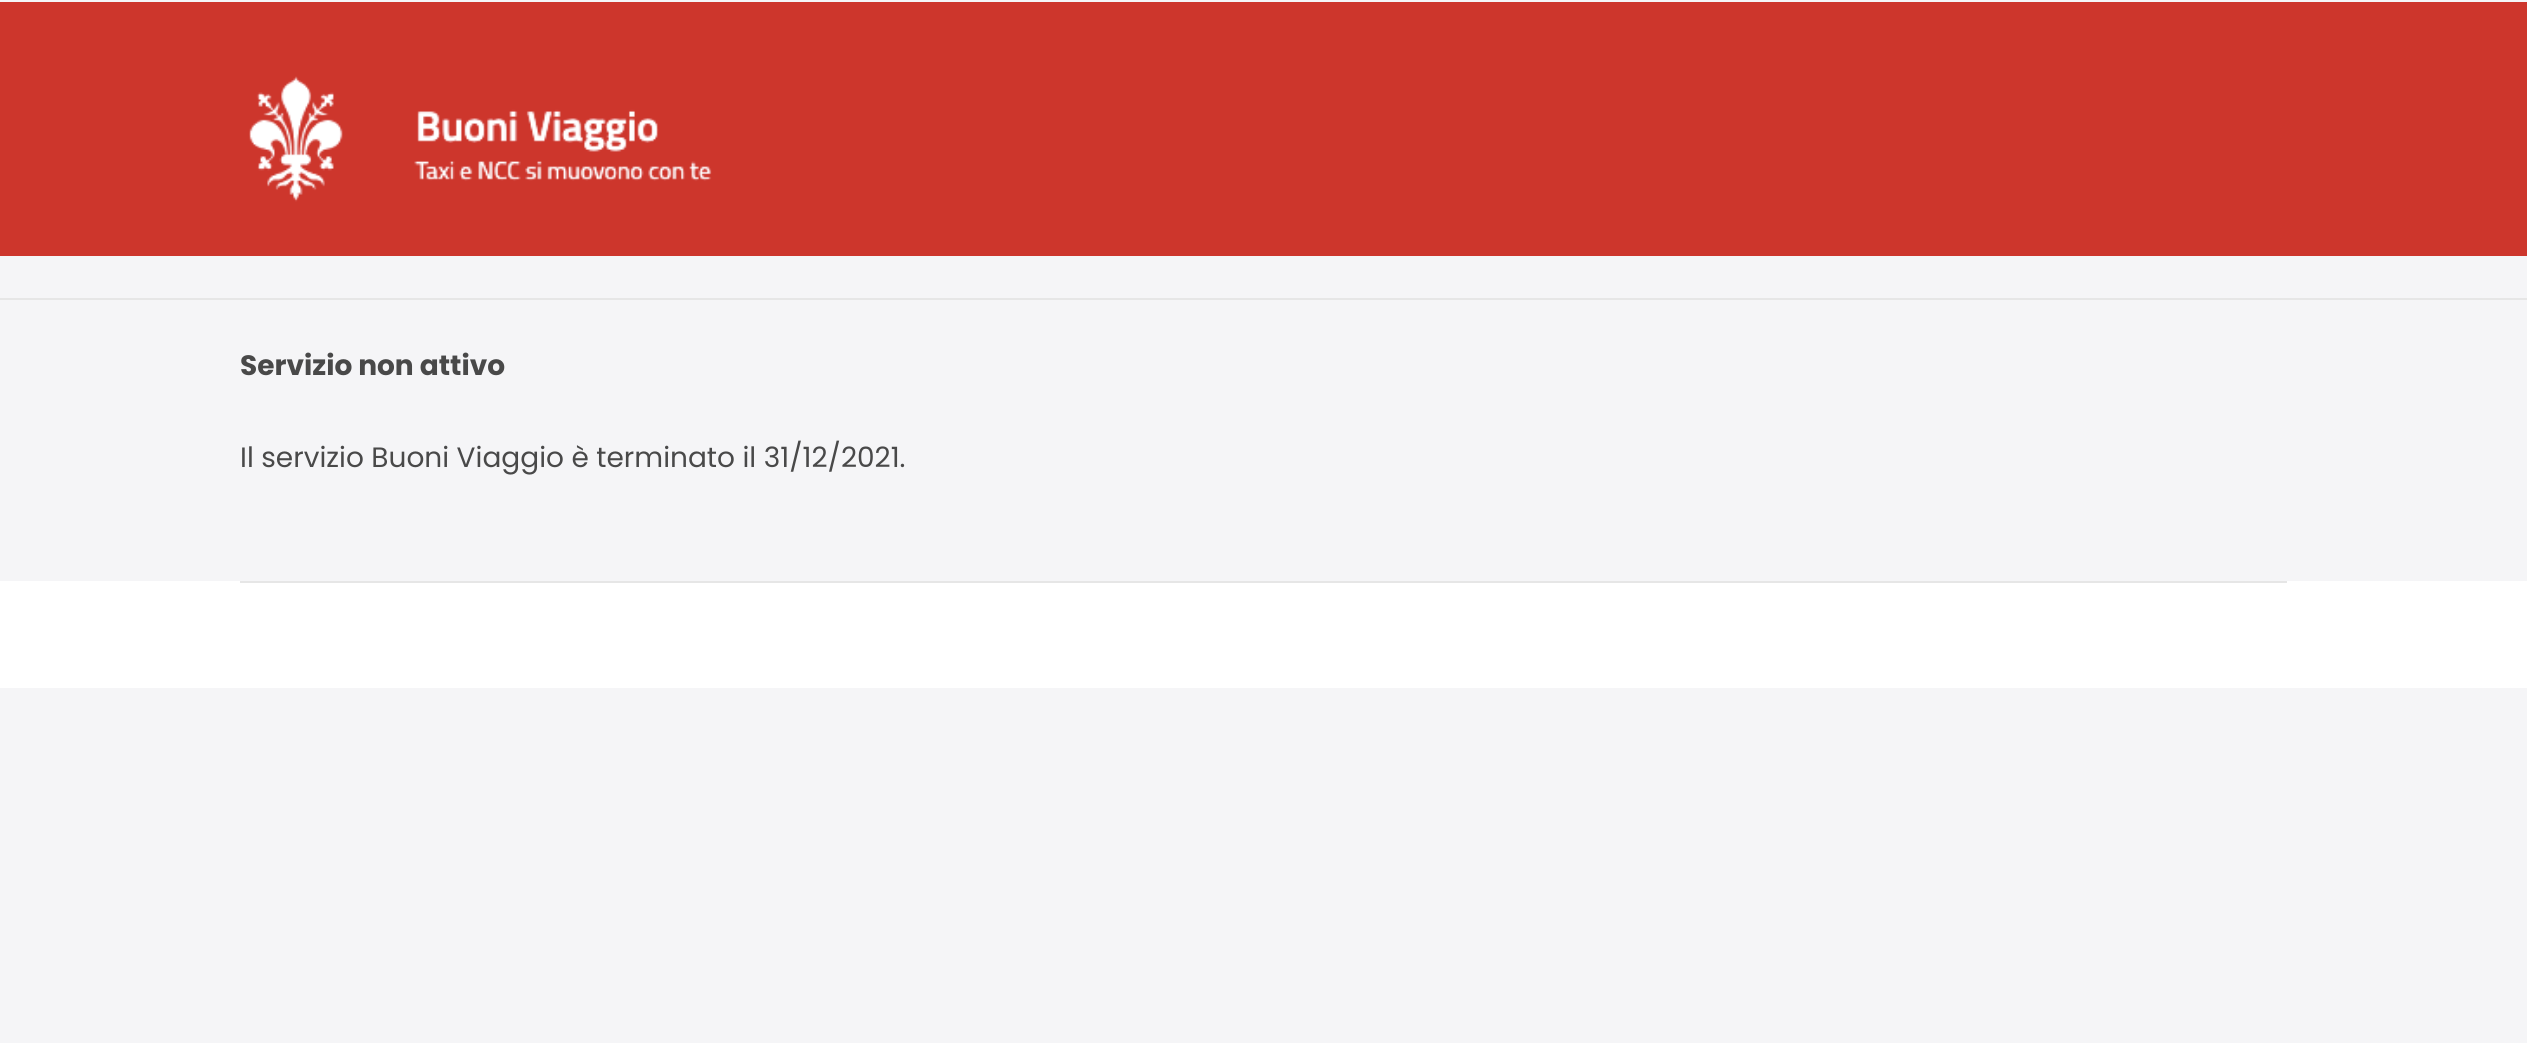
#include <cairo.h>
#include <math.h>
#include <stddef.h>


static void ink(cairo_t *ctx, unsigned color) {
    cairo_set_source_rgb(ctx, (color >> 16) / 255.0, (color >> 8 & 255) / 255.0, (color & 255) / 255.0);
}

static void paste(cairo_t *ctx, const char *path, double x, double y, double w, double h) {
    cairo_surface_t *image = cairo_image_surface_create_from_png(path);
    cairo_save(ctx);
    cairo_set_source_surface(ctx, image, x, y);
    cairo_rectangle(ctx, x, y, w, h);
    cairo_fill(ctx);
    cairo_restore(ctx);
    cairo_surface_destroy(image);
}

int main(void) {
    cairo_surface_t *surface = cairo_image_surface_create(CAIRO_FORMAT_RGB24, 2527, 1043);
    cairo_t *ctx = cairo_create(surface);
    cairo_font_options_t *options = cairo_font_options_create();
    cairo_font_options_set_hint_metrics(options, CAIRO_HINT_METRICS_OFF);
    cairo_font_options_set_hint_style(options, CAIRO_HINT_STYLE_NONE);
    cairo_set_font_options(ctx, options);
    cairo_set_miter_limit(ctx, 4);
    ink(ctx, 0xF5F5F7);
    cairo_paint(ctx);
    ink(ctx, 0xCD362C);
    cairo_rectangle(ctx, 0, 2, 2527, 254);
    cairo_fill(ctx);
    paste(ctx, "media/1.png", 249, 76, 463, 126);
    ink(ctx, 0xE6E6E6);
    cairo_rectangle(ctx, 0, 298, 2527, 2);
    cairo_fill(ctx);
    cairo_select_font_face(ctx, "Poppins", CAIRO_FONT_SLANT_NORMAL, CAIRO_FONT_WEIGHT_BOLD);
    cairo_set_font_size(ctx, 28);
    ink(ctx, 0x494949);
    cairo_move_to(ctx, 240, 375);
    cairo_show_text(ctx, "Servizio non attivo");
    cairo_select_font_face(ctx, "Poppins", CAIRO_FONT_SLANT_NORMAL, CAIRO_FONT_WEIGHT_NORMAL);
    cairo_move_to(ctx, 240, 467);
    cairo_show_text(ctx, "Il servizio Buoni Viaggio è terminato il 31/12/2021.");
    ink(ctx, 0xFFFFFF);
    cairo_rectangle(ctx, 0, 581, 2527, 107);
    cairo_fill(ctx);
    ink(ctx, 0xE6E6E6);
    cairo_rectangle(ctx, 240, 581, 2047, 2);
    cairo_fill(ctx);
    cairo_surface_write_to_png(surface, "image.png");
    cairo_font_options_destroy(options);
    cairo_destroy(ctx);
    cairo_surface_destroy(surface);
    return 0;
}
